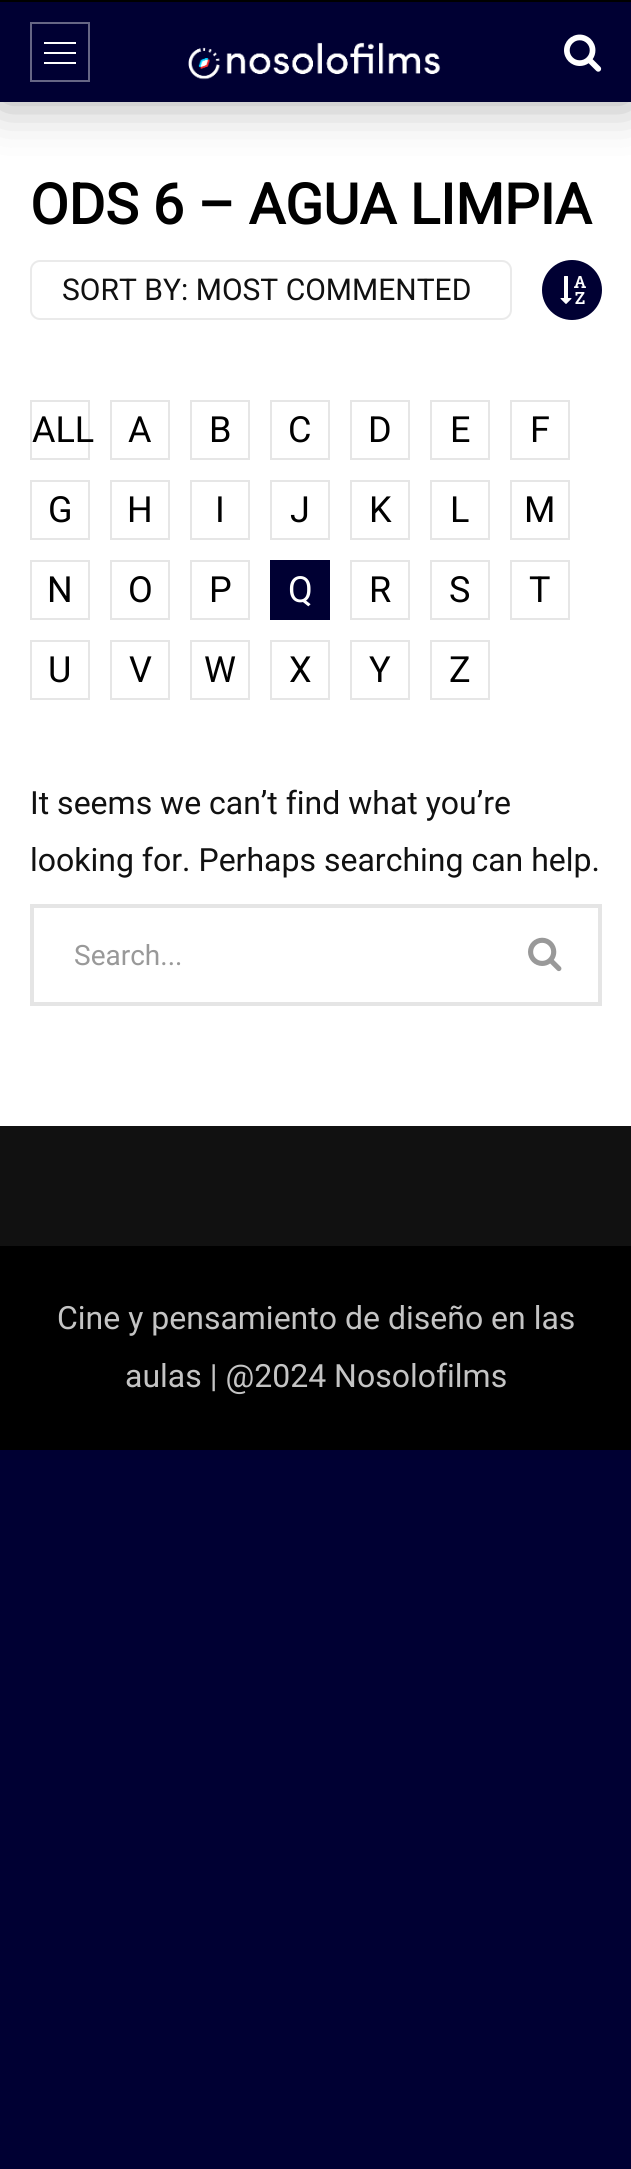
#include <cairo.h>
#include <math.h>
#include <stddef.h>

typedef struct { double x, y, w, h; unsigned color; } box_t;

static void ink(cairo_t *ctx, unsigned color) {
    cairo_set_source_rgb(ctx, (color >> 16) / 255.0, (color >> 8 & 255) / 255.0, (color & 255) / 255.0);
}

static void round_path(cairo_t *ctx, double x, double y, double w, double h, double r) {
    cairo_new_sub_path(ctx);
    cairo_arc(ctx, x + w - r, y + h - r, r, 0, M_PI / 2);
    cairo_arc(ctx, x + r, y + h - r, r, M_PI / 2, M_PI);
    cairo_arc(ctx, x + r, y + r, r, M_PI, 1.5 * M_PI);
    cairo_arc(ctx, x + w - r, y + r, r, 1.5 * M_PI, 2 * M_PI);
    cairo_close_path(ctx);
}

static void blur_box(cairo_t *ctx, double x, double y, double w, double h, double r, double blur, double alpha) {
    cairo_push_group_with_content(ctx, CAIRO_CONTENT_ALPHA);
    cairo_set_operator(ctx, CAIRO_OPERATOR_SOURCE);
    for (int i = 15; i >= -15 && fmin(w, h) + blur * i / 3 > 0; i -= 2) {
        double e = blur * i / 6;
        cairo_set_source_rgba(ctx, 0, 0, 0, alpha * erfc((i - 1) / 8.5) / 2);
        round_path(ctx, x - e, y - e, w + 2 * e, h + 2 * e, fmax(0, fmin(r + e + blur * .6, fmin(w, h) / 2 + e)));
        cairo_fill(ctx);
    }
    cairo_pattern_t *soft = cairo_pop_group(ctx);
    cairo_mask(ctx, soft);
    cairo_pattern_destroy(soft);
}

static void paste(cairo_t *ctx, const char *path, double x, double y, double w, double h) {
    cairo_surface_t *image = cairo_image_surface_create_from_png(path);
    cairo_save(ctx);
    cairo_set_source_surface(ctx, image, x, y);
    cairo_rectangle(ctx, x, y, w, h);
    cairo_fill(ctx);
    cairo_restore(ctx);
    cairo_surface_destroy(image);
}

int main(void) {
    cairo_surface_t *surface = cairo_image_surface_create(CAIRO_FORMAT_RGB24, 631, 2169);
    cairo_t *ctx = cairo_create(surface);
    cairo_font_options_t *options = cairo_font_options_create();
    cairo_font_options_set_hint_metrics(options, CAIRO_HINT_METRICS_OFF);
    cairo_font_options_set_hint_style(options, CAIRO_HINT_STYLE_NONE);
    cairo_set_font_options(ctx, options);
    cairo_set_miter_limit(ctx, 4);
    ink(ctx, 0x000033);
    cairo_paint(ctx);
    ink(ctx, 0xFFFFFF);
    cairo_rectangle(ctx, 0, 102, 631, 1024);
    cairo_fill(ctx);
    ink(ctx, 0x000000);
    cairo_rectangle(ctx, 0, 0, 631, 2);
    cairo_fill(ctx);
    ink(ctx, 0x000000);
    blur_box(ctx, 0, 2, 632, 100, 0, 25, 0.35);
    ink(ctx, 0x000033);
    cairo_rectangle(ctx, 0, 2, 631, 100);
    cairo_fill(ctx);
    cairo_rectangle(ctx, 31, 23, 58, 58);
    ink(ctx, 0x666685);
    cairo_stroke(ctx);
    {
        static const box_t items[] = {
            {44, 42, 32, 2, 0xFFFFFF},
            {44, 52, 32, 2, 0xFFFFFF},
            {44, 62, 32, 2, 0xFFFFFF},
        };
        for (size_t i = 0; i < sizeof items / sizeof *items; i++) {
            ink(ctx, items[i].color);
            cairo_rectangle(ctx, items[i].x, items[i].y, items[i].w, items[i].h);
            cairo_fill(ctx);
        }
    }
    paste(ctx, "media/1.png", 188, 42, 253, 38);
    paste(ctx, "media/2.png", 564, 34, 38, 38);
    cairo_select_font_face(ctx, "Roboto", CAIRO_FONT_SLANT_NORMAL, CAIRO_FONT_WEIGHT_BOLD);
    cairo_set_font_size(ctx, 56);
    ink(ctx, 0x000000);
    cairo_move_to(ctx, 30, 224);
    cairo_show_text(ctx, "ODS 6 – AGUA LIMPIA");
    round_path(ctx, 31, 261, 480, 58, 9);
    ink(ctx, 0xEAEAEA);
    cairo_stroke(ctx);
    cairo_select_font_face(ctx, "Roboto", CAIRO_FONT_SLANT_NORMAL, CAIRO_FONT_WEIGHT_NORMAL);
    cairo_set_font_size(ctx, 30);
    ink(ctx, 0x111111);
    cairo_move_to(ctx, 62, 300);
    cairo_show_text(ctx, "SORT BY: MOST COMMENTED");
    ink(ctx, 0x000033);
    cairo_new_path(ctx);
    cairo_arc(ctx, 572, 290, 30, 0, 2 * M_PI);
    cairo_fill(ctx);
    paste(ctx, "media/3.png", 560, 276, 26, 28);
    cairo_rectangle(ctx, 31, 401, 58, 58);
    ink(ctx, 0xE6E6E6);
    cairo_stroke(ctx);
    cairo_set_font_size(ctx, 36);
    ink(ctx, 0x000000);
    cairo_move_to(ctx, 32, 442);
    cairo_show_text(ctx, "ALL");
    cairo_rectangle(ctx, 111, 401, 58, 58);
    ink(ctx, 0xE6E6E6);
    cairo_stroke(ctx);
    ink(ctx, 0x000000);
    cairo_move_to(ctx, 128, 442);
    cairo_show_text(ctx, "A");
    cairo_rectangle(ctx, 191, 401, 58, 58);
    ink(ctx, 0xE6E6E6);
    cairo_stroke(ctx);
    ink(ctx, 0x000000);
    cairo_move_to(ctx, 209, 442);
    cairo_show_text(ctx, "B");
    cairo_rectangle(ctx, 271, 401, 58, 58);
    ink(ctx, 0xE6E6E6);
    cairo_stroke(ctx);
    ink(ctx, 0x000000);
    cairo_move_to(ctx, 288, 442);
    cairo_show_text(ctx, "C");
    cairo_rectangle(ctx, 351, 401, 58, 58);
    ink(ctx, 0xE6E6E6);
    cairo_stroke(ctx);
    ink(ctx, 0x000000);
    cairo_move_to(ctx, 368, 442);
    cairo_show_text(ctx, "D");
    cairo_rectangle(ctx, 431, 401, 58, 58);
    ink(ctx, 0xE6E6E6);
    cairo_stroke(ctx);
    ink(ctx, 0x000000);
    cairo_move_to(ctx, 450, 442);
    cairo_show_text(ctx, "E");
    cairo_rectangle(ctx, 511, 401, 58, 58);
    ink(ctx, 0xE6E6E6);
    cairo_stroke(ctx);
    ink(ctx, 0x000000);
    cairo_move_to(ctx, 530, 442);
    cairo_show_text(ctx, "F");
    cairo_rectangle(ctx, 31, 481, 58, 58);
    ink(ctx, 0xE6E6E6);
    cairo_stroke(ctx);
    ink(ctx, 0x000000);
    cairo_move_to(ctx, 48, 522);
    cairo_show_text(ctx, "G");
    cairo_rectangle(ctx, 111, 481, 58, 58);
    ink(ctx, 0xE6E6E6);
    cairo_stroke(ctx);
    ink(ctx, 0x000000);
    cairo_move_to(ctx, 127, 522);
    cairo_show_text(ctx, "H");
    cairo_rectangle(ctx, 191, 481, 58, 58);
    ink(ctx, 0xE6E6E6);
    cairo_stroke(ctx);
    ink(ctx, 0x000000);
    cairo_move_to(ctx, 215, 522);
    cairo_show_text(ctx, "I");
    cairo_rectangle(ctx, 271, 481, 58, 58);
    ink(ctx, 0xE6E6E6);
    cairo_stroke(ctx);
    ink(ctx, 0x000000);
    cairo_move_to(ctx, 290, 522);
    cairo_show_text(ctx, "J");
    cairo_rectangle(ctx, 351, 481, 58, 58);
    ink(ctx, 0xE6E6E6);
    cairo_stroke(ctx);
    ink(ctx, 0x000000);
    cairo_move_to(ctx, 369, 522);
    cairo_show_text(ctx, "K");
    cairo_rectangle(ctx, 431, 481, 58, 58);
    ink(ctx, 0xE6E6E6);
    cairo_stroke(ctx);
    ink(ctx, 0x000000);
    cairo_move_to(ctx, 450, 522);
    cairo_show_text(ctx, "L");
    cairo_rectangle(ctx, 511, 481, 58, 58);
    ink(ctx, 0xE6E6E6);
    cairo_stroke(ctx);
    ink(ctx, 0x000000);
    cairo_move_to(ctx, 524, 522);
    cairo_show_text(ctx, "M");
    cairo_rectangle(ctx, 31, 561, 58, 58);
    ink(ctx, 0xE6E6E6);
    cairo_stroke(ctx);
    ink(ctx, 0x000000);
    cairo_move_to(ctx, 47, 602);
    cairo_show_text(ctx, "N");
    cairo_rectangle(ctx, 111, 561, 58, 58);
    ink(ctx, 0xE6E6E6);
    cairo_stroke(ctx);
    ink(ctx, 0x000000);
    cairo_move_to(ctx, 128, 602);
    cairo_show_text(ctx, "O");
    cairo_rectangle(ctx, 191, 561, 58, 58);
    ink(ctx, 0xE6E6E6);
    cairo_stroke(ctx);
    ink(ctx, 0x000000);
    cairo_move_to(ctx, 209, 602);
    cairo_show_text(ctx, "P");
    ink(ctx, 0x000033);
    cairo_rectangle(ctx, 270, 560, 60, 60);
    cairo_fill(ctx);
    ink(ctx, 0xFFFFFF);
    cairo_move_to(ctx, 288, 602);
    cairo_show_text(ctx, "Q");
    cairo_rectangle(ctx, 351, 561, 58, 58);
    ink(ctx, 0xE6E6E6);
    cairo_stroke(ctx);
    ink(ctx, 0x000000);
    cairo_move_to(ctx, 369, 602);
    cairo_show_text(ctx, "R");
    cairo_rectangle(ctx, 431, 561, 58, 58);
    ink(ctx, 0xE6E6E6);
    cairo_stroke(ctx);
    ink(ctx, 0x000000);
    cairo_move_to(ctx, 449, 602);
    cairo_show_text(ctx, "S");
    cairo_rectangle(ctx, 511, 561, 58, 58);
    ink(ctx, 0xE6E6E6);
    cairo_stroke(ctx);
    ink(ctx, 0x000000);
    cairo_move_to(ctx, 529, 602);
    cairo_show_text(ctx, "T");
    cairo_rectangle(ctx, 31, 641, 58, 58);
    ink(ctx, 0xE6E6E6);
    cairo_stroke(ctx);
    ink(ctx, 0x000000);
    cairo_move_to(ctx, 48, 682);
    cairo_show_text(ctx, "U");
    cairo_rectangle(ctx, 111, 641, 58, 58);
    ink(ctx, 0xE6E6E6);
    cairo_stroke(ctx);
    ink(ctx, 0x000000);
    cairo_move_to(ctx, 129, 682);
    cairo_show_text(ctx, "V");
    cairo_rectangle(ctx, 191, 641, 58, 58);
    ink(ctx, 0xE6E6E6);
    cairo_stroke(ctx);
    ink(ctx, 0x000000);
    cairo_move_to(ctx, 204, 682);
    cairo_show_text(ctx, "W");
    cairo_rectangle(ctx, 271, 641, 58, 58);
    ink(ctx, 0xE6E6E6);
    cairo_stroke(ctx);
    ink(ctx, 0x000000);
    cairo_move_to(ctx, 289, 682);
    cairo_show_text(ctx, "X");
    cairo_rectangle(ctx, 351, 641, 58, 58);
    ink(ctx, 0xE6E6E6);
    cairo_stroke(ctx);
    ink(ctx, 0x000000);
    cairo_move_to(ctx, 369, 682);
    cairo_show_text(ctx, "Y");
    cairo_rectangle(ctx, 431, 641, 58, 58);
    ink(ctx, 0xE6E6E6);
    cairo_stroke(ctx);
    ink(ctx, 0x000000);
    cairo_move_to(ctx, 449, 682);
    cairo_show_text(ctx, "Z");
    cairo_set_font_size(ctx, 32);
    ink(ctx, 0x111111);
    cairo_move_to(ctx, 30, 814);
    cairo_show_text(ctx, "It seems we can’t find what you’re");
    cairo_move_to(ctx, 30, 871);
    cairo_show_text(ctx, "looking for. Perhaps searching can help.");
    cairo_rectangle(ctx, 32, 906, 568, 98);
    ink(ctx, 0xE5E5E5);
    cairo_set_line_width(ctx, 4);
    cairo_stroke(ctx);
    cairo_set_font_size(ctx, 28);
    ink(ctx, 0x999999);
    cairo_move_to(ctx, 74, 965);
    cairo_show_text(ctx, "Search...");
    paste(ctx, "media/4.png", 528, 937, 34, 35);
    ink(ctx, 0x111111);
    cairo_rectangle(ctx, 0, 1126, 631, 120);
    cairo_fill(ctx);
    ink(ctx, 0x000000);
    cairo_rectangle(ctx, 0, 1246, 631, 204);
    cairo_fill(ctx);
    cairo_set_font_size(ctx, 32);
    ink(ctx, 0xC4C4C4);
    cairo_move_to(ctx, 57, 1329);
    cairo_show_text(ctx, "Cine y pensamiento de diseño en las");
    cairo_move_to(ctx, 125, 1387);
    cairo_show_text(ctx, "aulas | @2024 Nosolofilms");
    cairo_surface_write_to_png(surface, "image.png");
    cairo_font_options_destroy(options);
    cairo_destroy(ctx);
    cairo_surface_destroy(surface);
    return 0;
}
